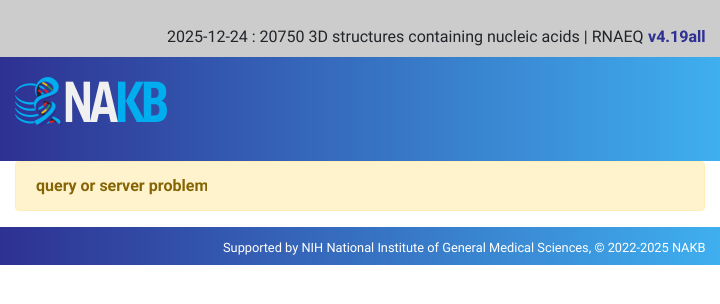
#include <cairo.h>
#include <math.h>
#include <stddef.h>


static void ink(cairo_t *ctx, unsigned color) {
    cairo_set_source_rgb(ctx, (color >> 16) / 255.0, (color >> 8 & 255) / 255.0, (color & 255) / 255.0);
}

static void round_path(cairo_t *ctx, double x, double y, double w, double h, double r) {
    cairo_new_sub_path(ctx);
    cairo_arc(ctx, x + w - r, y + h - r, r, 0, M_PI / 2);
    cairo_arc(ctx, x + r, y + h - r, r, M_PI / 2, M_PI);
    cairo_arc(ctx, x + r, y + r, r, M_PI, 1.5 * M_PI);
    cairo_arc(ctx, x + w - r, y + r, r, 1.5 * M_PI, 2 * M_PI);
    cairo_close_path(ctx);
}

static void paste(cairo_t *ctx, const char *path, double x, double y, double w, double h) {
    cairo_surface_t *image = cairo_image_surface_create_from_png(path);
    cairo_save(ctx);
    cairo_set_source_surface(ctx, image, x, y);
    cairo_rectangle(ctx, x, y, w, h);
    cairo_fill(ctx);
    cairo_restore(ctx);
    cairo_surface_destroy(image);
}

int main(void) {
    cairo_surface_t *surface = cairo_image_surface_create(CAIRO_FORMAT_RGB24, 720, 304);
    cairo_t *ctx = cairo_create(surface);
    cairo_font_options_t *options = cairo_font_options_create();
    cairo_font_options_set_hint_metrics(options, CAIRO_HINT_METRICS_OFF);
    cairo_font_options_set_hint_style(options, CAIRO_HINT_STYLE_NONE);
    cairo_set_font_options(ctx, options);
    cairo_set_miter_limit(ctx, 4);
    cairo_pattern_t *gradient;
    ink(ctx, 0xFFFFFF);
    cairo_paint(ctx);
    ink(ctx, 0xCCCCCC);
    cairo_rectangle(ctx, 0, 0, 720, 57);
    cairo_fill(ctx);
    cairo_select_font_face(ctx, "Roboto", CAIRO_FONT_SLANT_NORMAL, CAIRO_FONT_WEIGHT_NORMAL);
    cairo_set_font_size(ctx, 16);
    ink(ctx, 0x212529);
    cairo_move_to(ctx, 167, 42);
    cairo_show_text(ctx, "2025-12-24 : 20750 3D structures containing nucleic acids | RNAEQ");
    cairo_select_font_face(ctx, "Roboto", CAIRO_FONT_SLANT_NORMAL, CAIRO_FONT_WEIGHT_BOLD);
    ink(ctx, 0x2E3192);
    cairo_move_to(ctx, 648, 42);
    cairo_show_text(ctx, "v4.19all");
    gradient = cairo_pattern_create_linear(0, 109, 720, 109);
    cairo_pattern_add_color_stop_rgba(gradient, 0, 0.18, 0.192, 0.573, 1);
    cairo_pattern_add_color_stop_rgba(gradient, 1, 0.247, 0.686, 0.937, 1);
    cairo_set_source(ctx, gradient);
    cairo_pattern_destroy(gradient);
    cairo_rectangle(ctx, 0, 57, 720, 104);
    cairo_fill(ctx);
    paste(ctx, "media/1.png", 15, 77, 152, 50);
    ink(ctx, 0xFFF3CD);
    round_path(ctx, 15.5, 161.5, 689, 49, 3.5);
    cairo_fill_preserve(ctx);
    ink(ctx, 0xFFEEBA);
    cairo_set_line_width(ctx, 1);
    cairo_stroke(ctx);
    cairo_select_font_face(ctx, "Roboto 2", CAIRO_FONT_SLANT_NORMAL, CAIRO_FONT_WEIGHT_BOLD);
    ink(ctx, 0x856404);
    cairo_move_to(ctx, 36, 191);
    cairo_show_text(ctx, "query or server problem");
    gradient = cairo_pattern_create_linear(0, 246, 720, 246);
    cairo_pattern_add_color_stop_rgba(gradient, 0, 0.18, 0.192, 0.573, 1);
    cairo_pattern_add_color_stop_rgba(gradient, 1, 0.247, 0.686, 0.937, 1);
    cairo_set_source(ctx, gradient);
    cairo_pattern_destroy(gradient);
    cairo_rectangle(ctx, 0, 227, 720, 38);
    cairo_fill(ctx);
    cairo_select_font_face(ctx, "Roboto", CAIRO_FONT_SLANT_NORMAL, CAIRO_FONT_WEIGHT_NORMAL);
    cairo_set_font_size(ctx, 12.8);
    ink(ctx, 0xFFFFFF);
    cairo_move_to(ctx, 223, 252);
    cairo_show_text(ctx, "Supported by NIH National Institute of General Medical Sciences, © 2022-2025 NAKB");
    cairo_surface_write_to_png(surface, "image.png");
    cairo_font_options_destroy(options);
    cairo_destroy(ctx);
    cairo_surface_destroy(surface);
    return 0;
}
